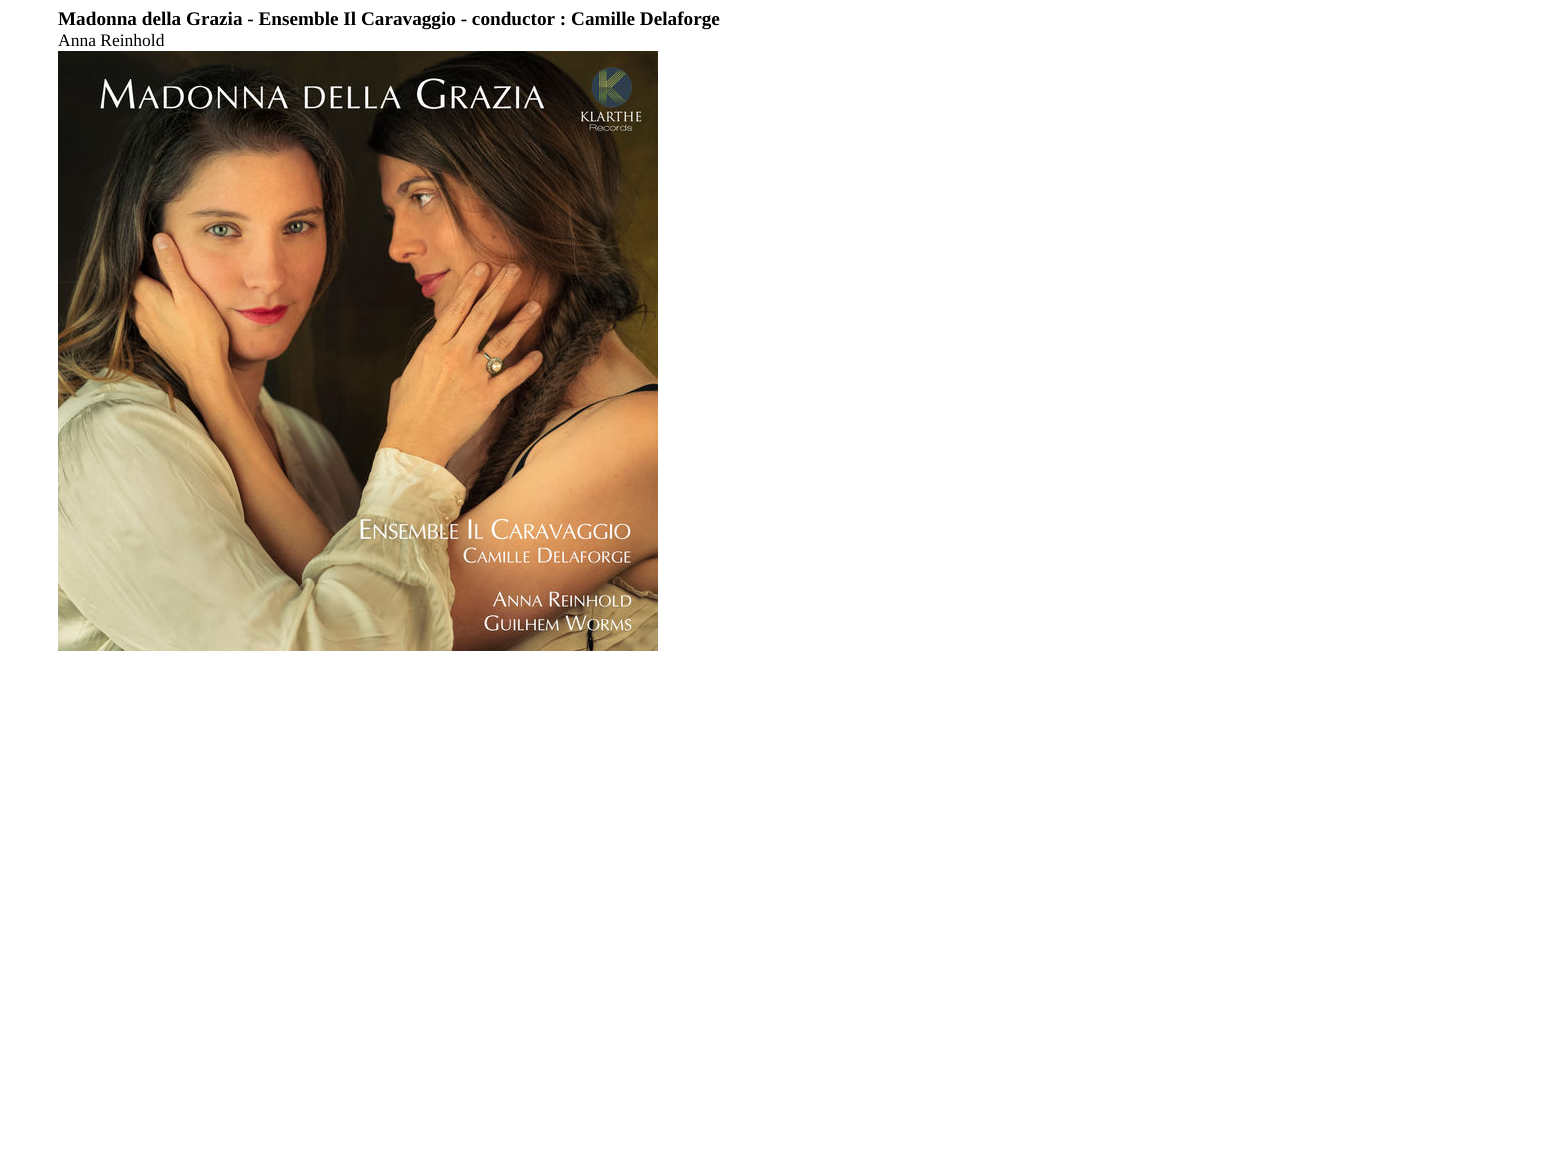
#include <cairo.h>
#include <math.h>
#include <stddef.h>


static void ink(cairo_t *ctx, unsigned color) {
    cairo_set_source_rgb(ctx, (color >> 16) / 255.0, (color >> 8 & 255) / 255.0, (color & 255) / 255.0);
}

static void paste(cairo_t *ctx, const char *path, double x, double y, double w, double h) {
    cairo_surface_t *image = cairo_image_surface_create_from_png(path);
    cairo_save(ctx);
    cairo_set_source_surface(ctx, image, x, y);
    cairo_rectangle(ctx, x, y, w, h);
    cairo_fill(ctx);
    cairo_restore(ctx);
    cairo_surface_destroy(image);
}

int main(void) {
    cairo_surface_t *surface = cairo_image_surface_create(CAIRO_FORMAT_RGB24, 1568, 1160);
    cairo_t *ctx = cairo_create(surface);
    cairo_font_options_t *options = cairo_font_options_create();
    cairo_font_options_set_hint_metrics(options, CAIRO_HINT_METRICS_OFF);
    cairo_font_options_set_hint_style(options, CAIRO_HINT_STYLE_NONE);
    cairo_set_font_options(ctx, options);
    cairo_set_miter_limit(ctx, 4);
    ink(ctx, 0xFFFFFF);
    cairo_paint(ctx);
    cairo_select_font_face(ctx, "Liberation Serif", CAIRO_FONT_SLANT_NORMAL, CAIRO_FONT_WEIGHT_BOLD);
    cairo_set_font_size(ctx, 19.2);
    ink(ctx, 0x000000);
    cairo_move_to(ctx, 58, 25);
    cairo_show_text(ctx, "Madonna della Grazia - Ensemble Il Caravaggio - conductor : Camille Delaforge");
    cairo_select_font_face(ctx, "Liberation Serif", CAIRO_FONT_SLANT_NORMAL, CAIRO_FONT_WEIGHT_NORMAL);
    cairo_set_font_size(ctx, 17.5);
    cairo_move_to(ctx, 58, 46);
    cairo_show_text(ctx, "Anna Reinhold");
    paste(ctx, "media/1.png", 58, 51, 600, 600);
    cairo_surface_write_to_png(surface, "image.png");
    cairo_font_options_destroy(options);
    cairo_destroy(ctx);
    cairo_surface_destroy(surface);
    return 0;
}
